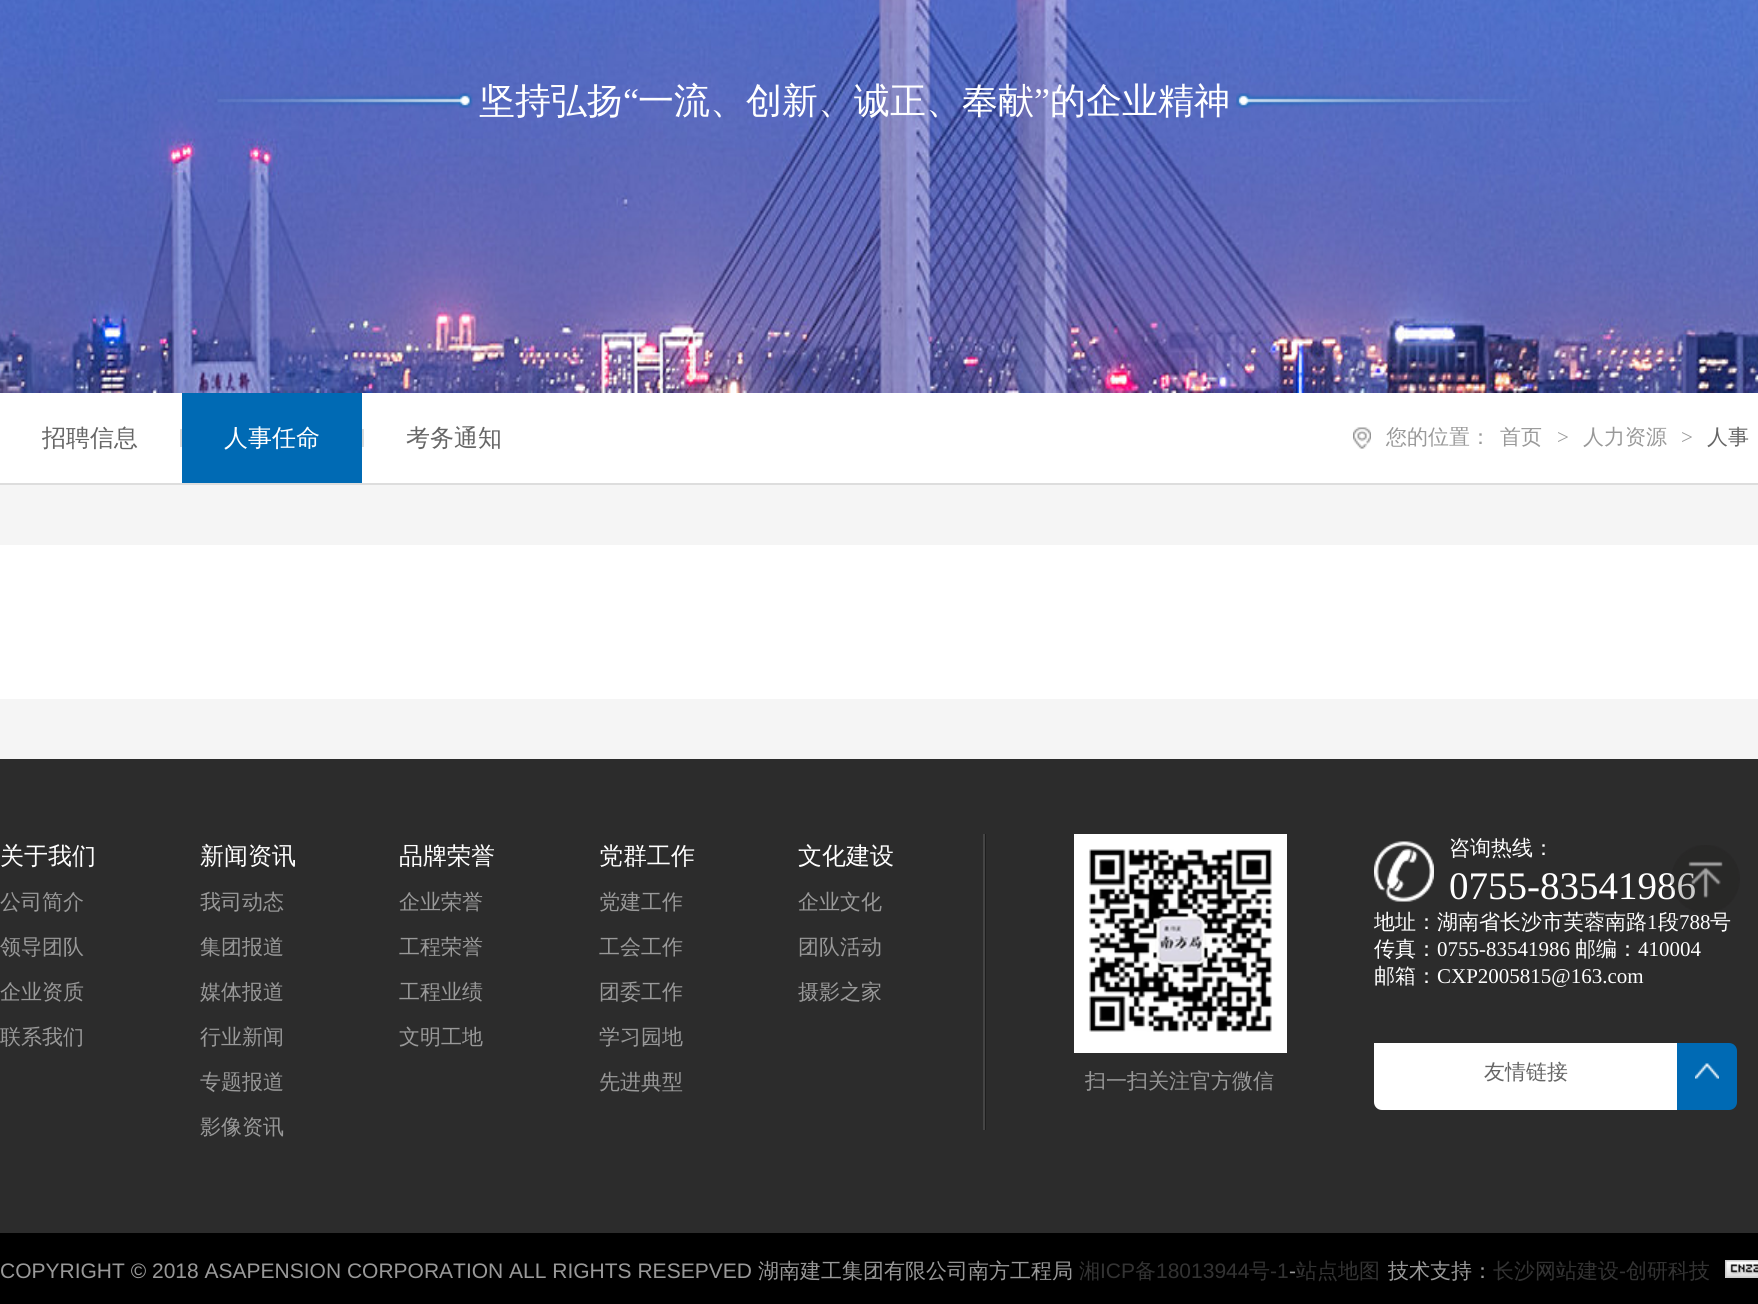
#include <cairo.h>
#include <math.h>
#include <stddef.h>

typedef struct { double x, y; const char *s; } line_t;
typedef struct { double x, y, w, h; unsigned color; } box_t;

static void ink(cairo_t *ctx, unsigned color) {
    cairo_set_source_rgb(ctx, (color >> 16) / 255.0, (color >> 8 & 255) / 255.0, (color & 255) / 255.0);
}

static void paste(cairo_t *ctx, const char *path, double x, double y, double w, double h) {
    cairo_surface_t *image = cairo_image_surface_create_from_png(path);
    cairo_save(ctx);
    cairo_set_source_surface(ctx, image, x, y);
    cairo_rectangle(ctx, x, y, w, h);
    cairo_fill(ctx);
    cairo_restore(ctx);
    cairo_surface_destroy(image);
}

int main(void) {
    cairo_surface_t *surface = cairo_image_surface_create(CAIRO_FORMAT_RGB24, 1758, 1304);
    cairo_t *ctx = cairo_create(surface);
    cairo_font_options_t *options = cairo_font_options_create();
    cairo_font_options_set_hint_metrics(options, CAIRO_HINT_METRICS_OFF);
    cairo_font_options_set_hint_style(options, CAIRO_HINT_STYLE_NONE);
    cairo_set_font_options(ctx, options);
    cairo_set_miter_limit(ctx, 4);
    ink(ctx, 0xFFFFFF);
    cairo_paint(ctx);
    paste(ctx, "media/1.png", 0, 0, 1758, 393);
    paste(ctx, "media/2.png", 217, 93, 256, 15);
    cairo_select_font_face(ctx, "WenQuanYi Zen Hei Medium", CAIRO_FONT_SLANT_NORMAL, CAIRO_FONT_WEIGHT_NORMAL);
    cairo_set_font_size(ctx, 36);
    ink(ctx, 0xFFFFFF);
    cairo_move_to(ctx, 479, 113);
    cairo_show_text(ctx, "坚持弘扬");
    cairo_select_font_face(ctx, "Liberation Serif", CAIRO_FONT_SLANT_NORMAL, CAIRO_FONT_WEIGHT_NORMAL);
    cairo_move_to(ctx, 623, 113);
    cairo_show_text(ctx, "“");
    cairo_select_font_face(ctx, "WenQuanYi Zen Hei Medium", CAIRO_FONT_SLANT_NORMAL, CAIRO_FONT_WEIGHT_NORMAL);
    cairo_move_to(ctx, 638, 113);
    cairo_show_text(ctx, "一流、创新、诚正、奉献");
    cairo_select_font_face(ctx, "Liberation Serif", CAIRO_FONT_SLANT_NORMAL, CAIRO_FONT_WEIGHT_NORMAL);
    cairo_move_to(ctx, 1034, 113);
    cairo_show_text(ctx, "”");
    cairo_select_font_face(ctx, "WenQuanYi Zen Hei Medium", CAIRO_FONT_SLANT_NORMAL, CAIRO_FONT_WEIGHT_NORMAL);
    cairo_move_to(ctx, 1050, 113);
    cairo_show_text(ctx, "的企业精神");
    paste(ctx, "media/3.png", 1236, 93, 294, 15);
    cairo_set_font_size(ctx, 24);
    ink(ctx, 0x666666);
    cairo_move_to(ctx, 42, 446);
    cairo_show_text(ctx, "招聘信息");
    ink(ctx, 0xDDDDDD);
    cairo_rectangle(ctx, 180, 429, 2, 18);
    cairo_fill(ctx);
    ink(ctx, 0x006AB4);
    cairo_rectangle(ctx, 182, 393, 180, 90);
    cairo_fill(ctx);
    ink(ctx, 0xFFFFFF);
    cairo_move_to(ctx, 224, 446);
    cairo_show_text(ctx, "人事任命");
    ink(ctx, 0xDDDDDD);
    cairo_rectangle(ctx, 362, 429, 2, 18);
    cairo_fill(ctx);
    ink(ctx, 0x666666);
    cairo_move_to(ctx, 406, 446);
    cairo_show_text(ctx, "考务通知");
    paste(ctx, "media/4.png", 1353, 427, 18, 22);
    cairo_set_font_size(ctx, 21);
    ink(ctx, 0x999999);
    cairo_move_to(ctx, 1386, 444);
    cairo_show_text(ctx, "您的位置：");
    cairo_move_to(ctx, 1500, 444);
    cairo_show_text(ctx, "首页");
    cairo_select_font_face(ctx, "Liberation Serif", CAIRO_FONT_SLANT_NORMAL, CAIRO_FONT_WEIGHT_NORMAL);
    cairo_move_to(ctx, 1557, 444);
    cairo_show_text(ctx, ">");
    cairo_select_font_face(ctx, "WenQuanYi Zen Hei Medium", CAIRO_FONT_SLANT_NORMAL, CAIRO_FONT_WEIGHT_NORMAL);
    cairo_move_to(ctx, 1583, 444);
    cairo_show_text(ctx, "人力资源");
    cairo_select_font_face(ctx, "Liberation Serif", CAIRO_FONT_SLANT_NORMAL, CAIRO_FONT_WEIGHT_NORMAL);
    cairo_move_to(ctx, 1681, 444);
    cairo_show_text(ctx, ">");
    cairo_select_font_face(ctx, "WenQuanYi Zen Hei Medium", CAIRO_FONT_SLANT_NORMAL, CAIRO_FONT_WEIGHT_NORMAL);
    ink(ctx, 0x666666);
    cairo_move_to(ctx, 1707, 444);
    cairo_show_text(ctx, "人事");
    {
        static const box_t items[] = {
            {0, 485, 1758, 274, 0xF5F5F5},
            {0, 483, 1758, 2, 0xDDDDDD},
            {0, 545, 1758, 154, 0xFFFFFF},
            {0, 759, 1758, 474, 0x2C2C2C},
        };
        for (size_t i = 0; i < sizeof items / sizeof *items; i++) {
            ink(ctx, items[i].color);
            cairo_rectangle(ctx, items[i].x, items[i].y, items[i].w, items[i].h);
            cairo_fill(ctx);
        }
    }
    cairo_set_font_size(ctx, 24);
    ink(ctx, 0xFFFFFF);
    cairo_move_to(ctx, 0, 864);
    cairo_show_text(ctx, "关于我们");
    cairo_set_font_size(ctx, 21);
    ink(ctx, 0x999999);
    {
        static const line_t items[] = {
            {0, 909, "公司简介"},
            {0, 954, "领导团队"},
            {0, 999, "企业资质"},
            {0, 1044, "联系我们"},
        };
        for (size_t i = 0; i < sizeof items / sizeof *items; i++) {
            cairo_move_to(ctx, items[i].x, items[i].y);
            cairo_show_text(ctx, items[i].s);
        }
    }
    cairo_set_font_size(ctx, 24);
    ink(ctx, 0xFFFFFF);
    cairo_move_to(ctx, 200, 864);
    cairo_show_text(ctx, "新闻资讯");
    cairo_set_font_size(ctx, 21);
    ink(ctx, 0x999999);
    {
        static const line_t items[] = {
            {200, 909, "我司动态"},
            {200, 954, "集团报道"},
            {200, 999, "媒体报道"},
            {200, 1044, "行业新闻"},
            {200, 1089, "专题报道"},
            {200, 1134, "影像资讯"},
        };
        for (size_t i = 0; i < sizeof items / sizeof *items; i++) {
            cairo_move_to(ctx, items[i].x, items[i].y);
            cairo_show_text(ctx, items[i].s);
        }
    }
    cairo_set_font_size(ctx, 24);
    ink(ctx, 0xFFFFFF);
    cairo_move_to(ctx, 399, 864);
    cairo_show_text(ctx, "品牌荣誉");
    cairo_set_font_size(ctx, 21);
    ink(ctx, 0x999999);
    {
        static const line_t items[] = {
            {399, 909, "企业荣誉"},
            {399, 954, "工程荣誉"},
            {399, 999, "工程业绩"},
            {399, 1044, "文明工地"},
        };
        for (size_t i = 0; i < sizeof items / sizeof *items; i++) {
            cairo_move_to(ctx, items[i].x, items[i].y);
            cairo_show_text(ctx, items[i].s);
        }
    }
    cairo_set_font_size(ctx, 24);
    ink(ctx, 0xFFFFFF);
    cairo_move_to(ctx, 599, 864);
    cairo_show_text(ctx, "党群工作");
    cairo_set_font_size(ctx, 21);
    ink(ctx, 0x999999);
    {
        static const line_t items[] = {
            {599, 909, "党建工作"},
            {599, 954, "工会工作"},
            {599, 999, "团委工作"},
            {599, 1044, "学习园地"},
            {599, 1089, "先进典型"},
        };
        for (size_t i = 0; i < sizeof items / sizeof *items; i++) {
            cairo_move_to(ctx, items[i].x, items[i].y);
            cairo_show_text(ctx, items[i].s);
        }
    }
    cairo_set_font_size(ctx, 24);
    ink(ctx, 0xFFFFFF);
    cairo_move_to(ctx, 798, 864);
    cairo_show_text(ctx, "文化建设");
    cairo_set_font_size(ctx, 21);
    ink(ctx, 0x999999);
    {
        static const line_t items[] = {
            {798, 909, "企业文化"},
            {798, 954, "团队活动"},
            {798, 999, "摄影之家"},
        };
        for (size_t i = 0; i < sizeof items / sizeof *items; i++) {
            cairo_move_to(ctx, items[i].x, items[i].y);
            cairo_show_text(ctx, items[i].s);
        }
    }
    {
        static const box_t items[] = {
            {985, 834, 1, 296, 0x1E1E1E},
            {983, 834, 2, 296, 0x454545},
            {1074, 834, 213, 219, 0xFFFFFF},
        };
        for (size_t i = 0; i < sizeof items / sizeof *items; i++) {
            ink(ctx, items[i].color);
            cairo_rectangle(ctx, items[i].x, items[i].y, items[i].w, items[i].h);
            cairo_fill(ctx);
        }
    }
    paste(ctx, "media/5.png", 1089, 849, 183, 183);
    ink(ctx, 0x999999);
    cairo_move_to(ctx, 1085, 1088);
    cairo_show_text(ctx, "扫一扫关注官方微信");
    paste(ctx, "media/6.png", 1374, 841, 60, 61);
    ink(ctx, 0xFFFFFF);
    cairo_move_to(ctx, 1449, 855);
    cairo_show_text(ctx, "咨询热线：");
    cairo_select_font_face(ctx, "Liberation Serif", CAIRO_FONT_SLANT_NORMAL, CAIRO_FONT_WEIGHT_NORMAL);
    cairo_set_font_size(ctx, 39);
    cairo_move_to(ctx, 1449, 899);
    cairo_show_text(ctx, "0755-83541986");
    cairo_select_font_face(ctx, "WenQuanYi Zen Hei Medium", CAIRO_FONT_SLANT_NORMAL, CAIRO_FONT_WEIGHT_NORMAL);
    cairo_set_font_size(ctx, 21);
    cairo_move_to(ctx, 1374, 929);
    cairo_show_text(ctx, "地址：湖南省长沙市芙蓉南路");
    cairo_select_font_face(ctx, "Liberation Serif", CAIRO_FONT_SLANT_NORMAL, CAIRO_FONT_WEIGHT_NORMAL);
    cairo_move_to(ctx, 1647, 929);
    cairo_show_text(ctx, "1");
    cairo_select_font_face(ctx, "WenQuanYi Zen Hei Medium", CAIRO_FONT_SLANT_NORMAL, CAIRO_FONT_WEIGHT_NORMAL);
    cairo_move_to(ctx, 1658, 929);
    cairo_show_text(ctx, "段");
    cairo_select_font_face(ctx, "Liberation Serif", CAIRO_FONT_SLANT_NORMAL, CAIRO_FONT_WEIGHT_NORMAL);
    cairo_move_to(ctx, 1679, 929);
    cairo_show_text(ctx, "788");
    cairo_select_font_face(ctx, "WenQuanYi Zen Hei Medium", CAIRO_FONT_SLANT_NORMAL, CAIRO_FONT_WEIGHT_NORMAL);
    cairo_move_to(ctx, 1710, 929);
    cairo_show_text(ctx, "号");
    cairo_move_to(ctx, 1374, 956);
    cairo_show_text(ctx, "传真：");
    cairo_select_font_face(ctx, "Liberation Serif", CAIRO_FONT_SLANT_NORMAL, CAIRO_FONT_WEIGHT_NORMAL);
    cairo_move_to(ctx, 1437, 956);
    cairo_show_text(ctx, "0755-83541986");
    cairo_select_font_face(ctx, "WenQuanYi Zen Hei Medium", CAIRO_FONT_SLANT_NORMAL, CAIRO_FONT_WEIGHT_NORMAL);
    cairo_move_to(ctx, 1575, 956);
    cairo_show_text(ctx, "邮编：");
    cairo_select_font_face(ctx, "Liberation Serif", CAIRO_FONT_SLANT_NORMAL, CAIRO_FONT_WEIGHT_NORMAL);
    cairo_move_to(ctx, 1638, 956);
    cairo_show_text(ctx, "410004");
    cairo_select_font_face(ctx, "WenQuanYi Zen Hei Medium", CAIRO_FONT_SLANT_NORMAL, CAIRO_FONT_WEIGHT_NORMAL);
    cairo_move_to(ctx, 1374, 983);
    cairo_show_text(ctx, "邮箱：");
    cairo_select_font_face(ctx, "Liberation Serif", CAIRO_FONT_SLANT_NORMAL, CAIRO_FONT_WEIGHT_NORMAL);
    cairo_move_to(ctx, 1437, 983);
    cairo_show_text(ctx, "CXP2005815@163.com");
    cairo_new_path(ctx);
    cairo_move_to(ctx, 1374, 1043);
    cairo_line_to(ctx, 1677, 1043);
    cairo_line_to(ctx, 1677, 1110);
    cairo_line_to(ctx, 1382, 1110);
    cairo_curve_to(ctx, 1377.5, 1110, 1374, 1106.5, 1374, 1102);
    cairo_close_path(ctx);
    cairo_fill(ctx);
    cairo_select_font_face(ctx, "WenQuanYi Zen Hei Medium", CAIRO_FONT_SLANT_NORMAL, CAIRO_FONT_WEIGHT_NORMAL);
    ink(ctx, 0x666666);
    cairo_move_to(ctx, 1484, 1079);
    cairo_show_text(ctx, "友情链接");
    ink(ctx, 0x006AB4);
    cairo_new_path(ctx);
    cairo_move_to(ctx, 1677, 1043);
    cairo_line_to(ctx, 1729, 1043);
    cairo_curve_to(ctx, 1733.5, 1043, 1737, 1046.5, 1737, 1051);
    cairo_line_to(ctx, 1737, 1102);
    cairo_curve_to(ctx, 1737, 1106.5, 1733.5, 1110, 1729, 1110);
    cairo_line_to(ctx, 1677, 1110);
    cairo_close_path(ctx);
    cairo_fill(ctx);
    paste(ctx, "media/7.png", 1695, 1063, 24, 16);
    ink(ctx, 0x000000);
    cairo_rectangle(ctx, 0, 1233, 1758, 71);
    cairo_fill(ctx);
    cairo_select_font_face(ctx, "Liberation Sans", CAIRO_FONT_SLANT_NORMAL, CAIRO_FONT_WEIGHT_NORMAL);
    ink(ctx, 0x999999);
    cairo_move_to(ctx, 0, 1278);
    cairo_show_text(ctx, "COPYRIGHT © 2018 ASAPENSION CORPORATION ALL RIGHTS RESEPVED");
    cairo_select_font_face(ctx, "WenQuanYi Zen Hei Medium", CAIRO_FONT_SLANT_NORMAL, CAIRO_FONT_WEIGHT_NORMAL);
    cairo_move_to(ctx, 758, 1278);
    cairo_show_text(ctx, "湖南建工集团有限公司南方工程局");
    ink(ctx, 0x333333);
    cairo_move_to(ctx, 1079, 1278);
    cairo_show_text(ctx, "湘");
    cairo_select_font_face(ctx, "Liberation Sans", CAIRO_FONT_SLANT_NORMAL, CAIRO_FONT_WEIGHT_NORMAL);
    cairo_move_to(ctx, 1100, 1278);
    cairo_show_text(ctx, "ICP");
    cairo_select_font_face(ctx, "WenQuanYi Zen Hei Medium", CAIRO_FONT_SLANT_NORMAL, CAIRO_FONT_WEIGHT_NORMAL);
    cairo_move_to(ctx, 1135, 1278);
    cairo_show_text(ctx, "备");
    cairo_select_font_face(ctx, "Liberation Sans", CAIRO_FONT_SLANT_NORMAL, CAIRO_FONT_WEIGHT_NORMAL);
    cairo_move_to(ctx, 1156, 1278);
    cairo_show_text(ctx, "18013944");
    cairo_select_font_face(ctx, "WenQuanYi Zen Hei Medium", CAIRO_FONT_SLANT_NORMAL, CAIRO_FONT_WEIGHT_NORMAL);
    cairo_move_to(ctx, 1249, 1278);
    cairo_show_text(ctx, "号");
    cairo_select_font_face(ctx, "Liberation Sans", CAIRO_FONT_SLANT_NORMAL, CAIRO_FONT_WEIGHT_NORMAL);
    cairo_move_to(ctx, 1270, 1278);
    cairo_show_text(ctx, "-1");
    ink(ctx, 0x999999);
    cairo_move_to(ctx, 1289, 1278);
    cairo_show_text(ctx, "-");
    cairo_select_font_face(ctx, "WenQuanYi Zen Hei Medium", CAIRO_FONT_SLANT_NORMAL, CAIRO_FONT_WEIGHT_NORMAL);
    ink(ctx, 0x333333);
    cairo_move_to(ctx, 1296, 1278);
    cairo_show_text(ctx, "站点地图");
    ink(ctx, 0x999999);
    cairo_move_to(ctx, 1388, 1278);
    cairo_show_text(ctx, "技术支持：");
    ink(ctx, 0x333333);
    cairo_move_to(ctx, 1493, 1278);
    cairo_show_text(ctx, "长沙网站建设");
    cairo_select_font_face(ctx, "Liberation Sans", CAIRO_FONT_SLANT_NORMAL, CAIRO_FONT_WEIGHT_NORMAL);
    cairo_move_to(ctx, 1619, 1278);
    cairo_show_text(ctx, "-");
    cairo_select_font_face(ctx, "WenQuanYi Zen Hei Medium", CAIRO_FONT_SLANT_NORMAL, CAIRO_FONT_WEIGHT_NORMAL);
    cairo_move_to(ctx, 1626, 1278);
    cairo_show_text(ctx, "创研科技");
    paste(ctx, "media/8.png", 1725, 1260, 33, 18);
    paste(ctx, "media/9.png", 1671, 845, 69, 68);
    cairo_surface_write_to_png(surface, "image.png");
    cairo_font_options_destroy(options);
    cairo_destroy(ctx);
    cairo_surface_destroy(surface);
    return 0;
}
